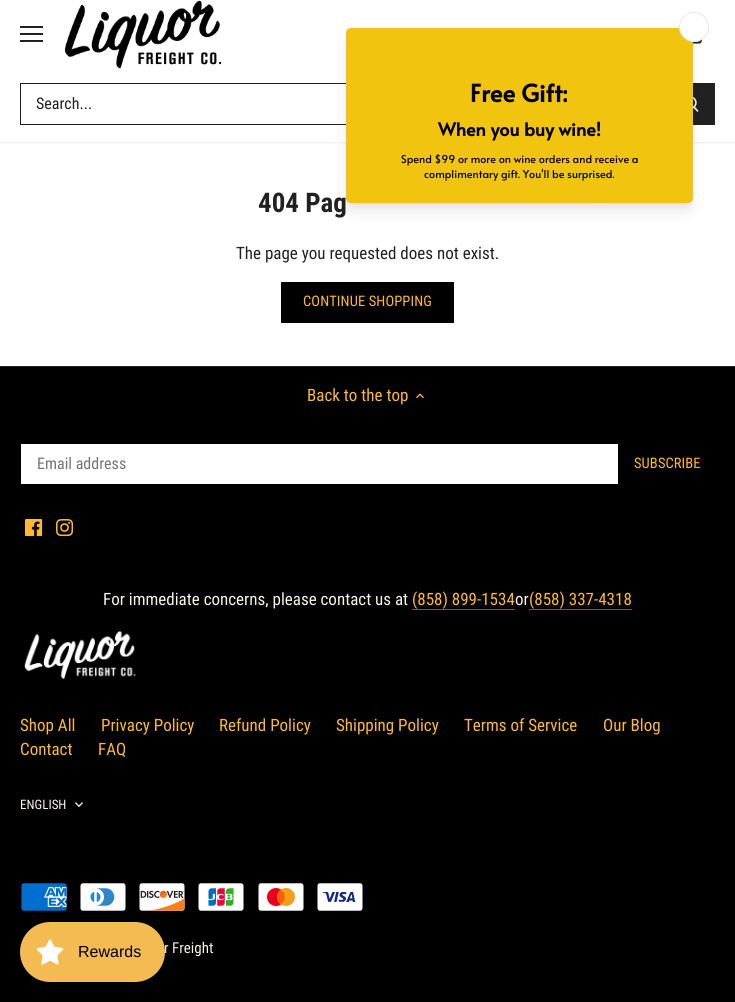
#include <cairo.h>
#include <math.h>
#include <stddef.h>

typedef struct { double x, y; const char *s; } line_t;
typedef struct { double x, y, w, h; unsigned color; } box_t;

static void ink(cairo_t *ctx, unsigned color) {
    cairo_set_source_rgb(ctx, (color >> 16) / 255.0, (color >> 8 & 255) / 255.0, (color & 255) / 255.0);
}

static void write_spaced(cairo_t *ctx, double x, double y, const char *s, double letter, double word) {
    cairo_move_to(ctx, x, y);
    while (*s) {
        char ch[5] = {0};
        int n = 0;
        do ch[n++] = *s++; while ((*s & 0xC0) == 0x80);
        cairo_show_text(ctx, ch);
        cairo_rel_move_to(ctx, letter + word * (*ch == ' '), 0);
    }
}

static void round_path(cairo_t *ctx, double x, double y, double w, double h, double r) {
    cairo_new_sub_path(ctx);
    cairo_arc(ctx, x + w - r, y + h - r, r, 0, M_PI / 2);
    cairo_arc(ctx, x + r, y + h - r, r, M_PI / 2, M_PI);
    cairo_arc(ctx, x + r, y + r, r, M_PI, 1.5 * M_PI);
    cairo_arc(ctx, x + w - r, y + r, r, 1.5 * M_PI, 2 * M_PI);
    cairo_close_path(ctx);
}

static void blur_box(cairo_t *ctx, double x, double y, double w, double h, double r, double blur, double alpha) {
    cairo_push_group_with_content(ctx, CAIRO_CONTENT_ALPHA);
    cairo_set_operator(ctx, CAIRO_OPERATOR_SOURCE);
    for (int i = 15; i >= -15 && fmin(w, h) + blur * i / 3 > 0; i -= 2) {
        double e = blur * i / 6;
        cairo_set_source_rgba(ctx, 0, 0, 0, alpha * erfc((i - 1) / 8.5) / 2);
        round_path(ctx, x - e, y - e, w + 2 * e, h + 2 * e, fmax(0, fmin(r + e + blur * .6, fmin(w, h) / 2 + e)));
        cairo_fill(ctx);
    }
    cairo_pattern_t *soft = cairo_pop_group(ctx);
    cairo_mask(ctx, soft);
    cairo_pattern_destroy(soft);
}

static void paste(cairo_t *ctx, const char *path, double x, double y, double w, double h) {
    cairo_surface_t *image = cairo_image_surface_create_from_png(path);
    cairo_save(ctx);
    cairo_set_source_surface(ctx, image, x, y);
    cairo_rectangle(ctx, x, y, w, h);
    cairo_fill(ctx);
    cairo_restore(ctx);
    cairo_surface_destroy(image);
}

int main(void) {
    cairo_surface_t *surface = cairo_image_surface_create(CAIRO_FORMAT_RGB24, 735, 1002);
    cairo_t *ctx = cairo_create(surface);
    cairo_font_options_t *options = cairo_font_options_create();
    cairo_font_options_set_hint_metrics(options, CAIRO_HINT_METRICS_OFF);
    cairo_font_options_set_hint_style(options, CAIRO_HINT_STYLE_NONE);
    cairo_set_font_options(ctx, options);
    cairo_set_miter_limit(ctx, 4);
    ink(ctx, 0x000000);
    cairo_paint(ctx);
    ink(ctx, 0xFFFFFF);
    cairo_rectangle(ctx, 0, 0, 735, 366);
    cairo_fill(ctx);
    cairo_save(ctx);
    cairo_rectangle(ctx, 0, 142, 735, 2);
    cairo_clip(ctx);
    ink(ctx, 0x000000);
    blur_box(ctx, -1, -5, 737, 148, 0, 1.5, 0.08);
    cairo_restore(ctx);
    paste(ctx, "media/2.png", 693, 39, 10, 5);
    cairo_rectangle(ctx, 20.5, 83.5, 694, 41);
    ink(ctx, 0x212121);
    cairo_set_line_width(ctx, 1);
    cairo_stroke(ctx);
    cairo_rectangle(ctx, 693, 84, 21, 40);
    cairo_fill(ctx);
    paste(ctx, "media/3.png", 693, 97, 6, 15);
    ink(ctx, 0x000000);
    blur_box(ctx, 348, 34, 343, 171, 3, 3, 0.05);
    blur_box(ctx, 349, 41, 341, 169, 2, 7.5, 0.1);
    cairo_save(ctx);
    cairo_rectangle(ctx, 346, 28, 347, 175);
    cairo_clip(ctx);
    blur_box(ctx, 349, 31, 341, 169, 2, 10, 0.12);
    cairo_restore(ctx);
    ink(ctx, 0xF1C40F);
    round_path(ctx, 346, 28, 347, 175, 5);
    cairo_fill(ctx);
    ink(ctx, 0xFFFFFF);
    cairo_arc(ctx, 694, 27, 14.5, 0, 2 * M_PI);
    cairo_fill_preserve(ctx);
    ink(ctx, 0xE2E8F0);
    cairo_stroke(ctx);
    cairo_select_font_face(ctx, "Alata", CAIRO_FONT_SLANT_NORMAL, CAIRO_FONT_WEIGHT_BOLD);
    cairo_set_font_size(ctx, 24);
    ink(ctx, 0x000000);
    cairo_move_to(ctx, 470, 102);
    cairo_show_text(ctx, "Free Gift:");
    cairo_set_font_size(ctx, 18);
    cairo_move_to(ctx, 438, 136);
    cairo_show_text(ctx, "When you buy wine!");
    cairo_select_font_face(ctx, "Alata", CAIRO_FONT_SLANT_NORMAL, CAIRO_FONT_WEIGHT_NORMAL);
    cairo_set_font_size(ctx, 10.8);
    cairo_move_to(ctx, 401, 163);
    cairo_show_text(ctx, "Spend $99 or more on wine orders and receive a");
    cairo_move_to(ctx, 424, 178);
    cairo_show_text(ctx, "complimentary gift. You'll be surprised.");
    {
        static const box_t items[] = {
            {20, 26, 23, 2, 0x212121},
            {20, 33, 23, 2, 0x212121},
            {20, 40, 23, 2, 0x212121},
        };
        for (size_t i = 0; i < sizeof items / sizeof *items; i++) {
            ink(ctx, items[i].color);
            cairo_rectangle(ctx, items[i].x, items[i].y, items[i].w, items[i].h);
            cairo_fill(ctx);
        }
    }
    paste(ctx, "media/1.png", 65, 0, 157, 69);
    cairo_select_font_face(ctx, "Roboto Condensed", CAIRO_FONT_SLANT_NORMAL, CAIRO_FONT_WEIGHT_NORMAL);
    cairo_set_font_size(ctx, 16);
    cairo_move_to(ctx, 36, 109);
    cairo_show_text(ctx, "Search...");
    cairo_select_font_face(ctx, "Roboto Condensed", CAIRO_FONT_SLANT_NORMAL, CAIRO_FONT_WEIGHT_BOLD);
    cairo_set_font_size(ctx, 27);
    cairo_move_to(ctx, 258, 212);
    cairo_show_text(ctx, "404 Pag");
    cairo_select_font_face(ctx, "Roboto Condensed", CAIRO_FONT_SLANT_NORMAL, CAIRO_FONT_WEIGHT_NORMAL);
    cairo_set_font_size(ctx, 17);
    cairo_move_to(ctx, 236, 259);
    cairo_show_text(ctx, "The page you requested does not exist.");
    ink(ctx, 0x000000);
    cairo_rectangle(ctx, 281, 282, 173, 41);
    cairo_fill(ctx);
    cairo_set_font_size(ctx, 14.5);
    ink(ctx, 0xFDB933);
    write_spaced(ctx, 303, 306, "CONTINUE SHOPPING", 0.1, 0);
    ink(ctx, 0x212121);
    cairo_rectangle(ctx, 0, 366, 735, 1);
    cairo_fill(ctx);
    cairo_set_font_size(ctx, 17);
    ink(ctx, 0xFDB933);
    cairo_move_to(ctx, 307, 401);
    cairo_show_text(ctx, "Back to the top");
    paste(ctx, "media/4.png", 416, 393, 8, 6);
    ink(ctx, 0xFFFFFF);
    cairo_rectangle(ctx, 21, 444, 597, 40);
    cairo_fill(ctx);
    cairo_set_font_size(ctx, 16);
    ink(ctx, 0x757575);
    cairo_move_to(ctx, 37, 469);
    cairo_show_text(ctx, "Email address");
    cairo_set_font_size(ctx, 14.5);
    ink(ctx, 0xFDB933);
    write_spaced(ctx, 634, 468, "SUBSCRIBE", 0.1, 0);
    paste(ctx, "media/5.png", 25, 519, 18, 18);
    paste(ctx, "media/6.png", 56, 519, 18, 18);
    cairo_set_font_size(ctx, 17);
    ink(ctx, 0xF9F4EC);
    cairo_move_to(ctx, 103, 605);
    cairo_show_text(ctx, "For immediate concerns, please contact us at");
    ink(ctx, 0xFDB933);
    cairo_move_to(ctx, 412, 605);
    cairo_show_text(ctx, "(858) 899-1534");
    ink(ctx, 0x7F5D1A);
    cairo_rectangle(ctx, 412, 609, 103, 1);
    cairo_fill(ctx);
    ink(ctx, 0xF9F4EC);
    cairo_move_to(ctx, 515, 605);
    cairo_show_text(ctx, "or");
    ink(ctx, 0xFDB933);
    cairo_move_to(ctx, 529, 605);
    cairo_show_text(ctx, "(858) 337-4318");
    ink(ctx, 0x7F5D1A);
    cairo_rectangle(ctx, 529, 609, 103, 1);
    cairo_fill(ctx);
    paste(ctx, "media/7.png", 24, 631, 112, 49);
    ink(ctx, 0xFDB933);
    {
        static const line_t items[] = {
            {20, 731, "Shop All"},
            {101, 731, "Privacy Policy"},
            {219, 731, "Refund Policy"},
            {336, 731, "Shipping Policy"},
            {464, 731, "Terms of Service"},
            {603, 731, "Our Blog"},
            {20, 755, "Contact"},
            {98, 755, "FAQ"},
        };
        for (size_t i = 0; i < sizeof items / sizeof *items; i++) {
            cairo_move_to(ctx, items[i].x, items[i].y);
            cairo_show_text(ctx, items[i].s);
        }
    }
    cairo_set_font_size(ctx, 13);
    ink(ctx, 0xF9F4EC);
    cairo_move_to(ctx, 20, 809);
    cairo_show_text(ctx, "ENGLISH");
    paste(ctx, "media/8.png", 75, 802, 8, 5);
    paste(ctx, "media/9.png", 21, 883, 46, 28);
    paste(ctx, "media/10.png", 80, 883, 46, 28);
    paste(ctx, "media/11.png", 139, 883, 46, 28);
    paste(ctx, "media/12.png", 198, 883, 46, 28);
    paste(ctx, "media/13.png", 258, 883, 46, 28);
    paste(ctx, "media/14.png", 317, 883, 46, 28);
    cairo_set_font_size(ctx, 15);
    cairo_move_to(ctx, 164, 953);
    cairo_show_text(ctx, "r Freight");
    ink(ctx, 0x000000);
    blur_box(ctx, 20, 924, 145, 60, 30, 15, 0.15);
    ink(ctx, 0xF3BB51);
    round_path(ctx, 20, 922, 145, 60, 30);
    cairo_fill(ctx);
    paste(ctx, "media/15.png", 36, 939, 28, 26);
    cairo_select_font_face(ctx, "Liberation Sans", CAIRO_FONT_SLANT_NORMAL, CAIRO_FONT_WEIGHT_NORMAL);
    cairo_set_font_size(ctx, 16);
    ink(ctx, 0x000000);
    cairo_move_to(ctx, 78, 957);
    cairo_show_text(ctx, "Rewards");
    cairo_surface_write_to_png(surface, "image.png");
    cairo_font_options_destroy(options);
    cairo_destroy(ctx);
    cairo_surface_destroy(surface);
    return 0;
}
